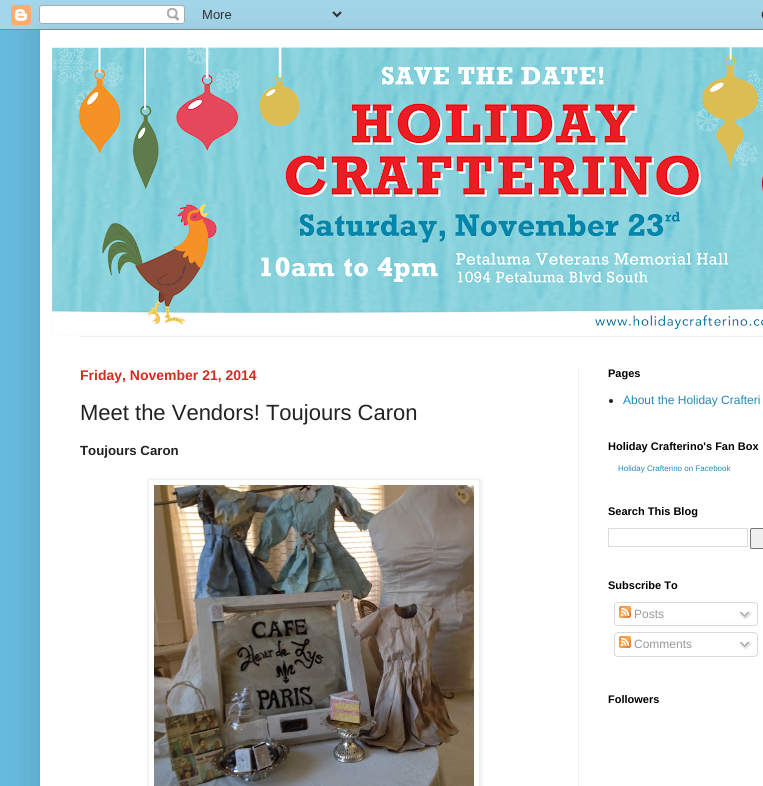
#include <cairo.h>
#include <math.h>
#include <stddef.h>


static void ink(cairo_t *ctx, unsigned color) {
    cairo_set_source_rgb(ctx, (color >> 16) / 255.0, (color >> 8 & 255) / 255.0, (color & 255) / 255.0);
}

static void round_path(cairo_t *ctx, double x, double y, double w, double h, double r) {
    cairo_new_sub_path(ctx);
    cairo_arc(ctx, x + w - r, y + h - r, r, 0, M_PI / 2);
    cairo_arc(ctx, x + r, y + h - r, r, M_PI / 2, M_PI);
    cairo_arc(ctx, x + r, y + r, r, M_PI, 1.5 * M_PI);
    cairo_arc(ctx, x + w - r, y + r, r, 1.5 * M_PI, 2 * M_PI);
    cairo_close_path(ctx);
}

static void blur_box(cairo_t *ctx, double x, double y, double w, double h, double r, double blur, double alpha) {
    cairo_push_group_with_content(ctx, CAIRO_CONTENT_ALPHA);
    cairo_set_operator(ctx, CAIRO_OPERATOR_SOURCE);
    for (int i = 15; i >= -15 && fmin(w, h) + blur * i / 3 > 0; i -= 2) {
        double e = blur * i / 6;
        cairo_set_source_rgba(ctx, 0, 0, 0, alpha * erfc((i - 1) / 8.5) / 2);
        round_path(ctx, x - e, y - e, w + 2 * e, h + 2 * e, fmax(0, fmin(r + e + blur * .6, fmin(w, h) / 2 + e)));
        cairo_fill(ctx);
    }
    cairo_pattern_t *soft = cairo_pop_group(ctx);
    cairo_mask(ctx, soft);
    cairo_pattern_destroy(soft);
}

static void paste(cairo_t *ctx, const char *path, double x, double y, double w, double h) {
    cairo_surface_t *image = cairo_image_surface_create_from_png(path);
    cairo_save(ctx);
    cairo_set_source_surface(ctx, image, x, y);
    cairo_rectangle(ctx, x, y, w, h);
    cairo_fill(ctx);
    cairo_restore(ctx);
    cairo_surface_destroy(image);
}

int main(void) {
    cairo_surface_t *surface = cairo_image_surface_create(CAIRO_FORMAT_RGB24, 763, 786);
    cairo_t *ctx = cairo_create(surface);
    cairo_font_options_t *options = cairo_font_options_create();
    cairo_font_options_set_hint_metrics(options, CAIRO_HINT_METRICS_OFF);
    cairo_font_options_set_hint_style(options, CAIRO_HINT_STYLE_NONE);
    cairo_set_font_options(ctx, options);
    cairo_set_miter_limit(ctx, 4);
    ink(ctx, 0x66BBDD);
    cairo_paint(ctx);
    ink(ctx, 0x000000);
    blur_box(ctx, 40, 30, 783, 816, 0, 20, 0.15);
    paste(ctx, "media/1.png", 0, 0, 763, 30);
    ink(ctx, 0xFFFFFF);
    cairo_rectangle(ctx, 40, 30, 723, 756);
    cairo_fill(ctx);
    paste(ctx, "media/2.png", 52, 47, 711, 289);
    ink(ctx, 0xEEEEEE);
    cairo_rectangle(ctx, 80, 336, 683, 1);
    cairo_fill(ctx);
    cairo_rectangle(ctx, 578, 367, 1, 419);
    cairo_fill(ctx);
    cairo_select_font_face(ctx, "Liberation Sans", CAIRO_FONT_SLANT_NORMAL, CAIRO_FONT_WEIGHT_BOLD);
    cairo_set_font_size(ctx, 14);
    ink(ctx, 0xD52C1F);
    cairo_move_to(ctx, 80, 380);
    cairo_show_text(ctx, "Friday, November 21, 2014");
    cairo_select_font_face(ctx, "Liberation Sans", CAIRO_FONT_SLANT_NORMAL, CAIRO_FONT_WEIGHT_NORMAL);
    cairo_set_font_size(ctx, 22);
    ink(ctx, 0x222222);
    cairo_move_to(ctx, 80, 420);
    cairo_show_text(ctx, "Meet the Vendors! Toujours Caron");
    cairo_select_font_face(ctx, "Liberation Sans", CAIRO_FONT_SLANT_NORMAL, CAIRO_FONT_WEIGHT_BOLD);
    cairo_set_font_size(ctx, 13.25);
    cairo_move_to(ctx, 80, 455);
    cairo_show_text(ctx, "Toujours Caron");
    cairo_save(ctx);
    cairo_set_fill_rule(ctx, CAIRO_FILL_RULE_EVEN_ODD);
    cairo_new_path(ctx);
    cairo_move_to(ctx, 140, 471);
    cairo_line_to(ctx, 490, 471);
    cairo_line_to(ctx, 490, 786);
    cairo_line_to(ctx, 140, 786);
    cairo_close_path(ctx);
    cairo_move_to(ctx, 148, 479);
    cairo_line_to(ctx, 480, 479);
    cairo_line_to(ctx, 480, 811);
    cairo_line_to(ctx, 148, 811);
    cairo_close_path(ctx);
    cairo_clip(ctx);
    ink(ctx, 0x000000);
    blur_box(ctx, 149, 480, 332, 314, 0, 2.5, 0.1);
    cairo_restore(ctx);
    cairo_rectangle(ctx, 148.5, 479.5, 331, 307);
    ink(ctx, 0xEEEEEE);
    cairo_set_line_width(ctx, 1);
    cairo_stroke(ctx);
    paste(ctx, "media/3.png", 154, 485, 320, 301);
    cairo_set_font_size(ctx, 11);
    ink(ctx, 0x000000);
    cairo_move_to(ctx, 608, 377);
    cairo_show_text(ctx, "Pages");
    ink(ctx, 0x222222);
    cairo_new_path(ctx);
    cairo_arc(ctx, 611, 401, 2, 0, 2 * M_PI);
    cairo_fill(ctx);
    cairo_select_font_face(ctx, "Liberation Sans", CAIRO_FONT_SLANT_NORMAL, CAIRO_FONT_WEIGHT_NORMAL);
    cairo_set_font_size(ctx, 12);
    ink(ctx, 0x2288BB);
    cairo_move_to(ctx, 623, 404);
    cairo_show_text(ctx, "About the Holiday Crafteri");
    cairo_select_font_face(ctx, "Liberation Sans", CAIRO_FONT_SLANT_NORMAL, CAIRO_FONT_WEIGHT_BOLD);
    cairo_set_font_size(ctx, 11);
    ink(ctx, 0x000000);
    cairo_move_to(ctx, 608, 450);
    cairo_show_text(ctx, "Holiday Crafterino's Fan Box");
    cairo_select_font_face(ctx, "Liberation Sans", CAIRO_FONT_SLANT_NORMAL, CAIRO_FONT_WEIGHT_NORMAL);
    cairo_set_font_size(ctx, 8);
    ink(ctx, 0x2288BB);
    cairo_move_to(ctx, 618, 471);
    cairo_show_text(ctx, "Holiday Crafterino on Facebook");
    cairo_select_font_face(ctx, "Liberation Sans", CAIRO_FONT_SLANT_NORMAL, CAIRO_FONT_WEIGHT_BOLD);
    cairo_set_font_size(ctx, 11);
    ink(ctx, 0x000000);
    cairo_move_to(ctx, 608, 515);
    cairo_show_text(ctx, "Search This Blog");
    cairo_rectangle(ctx, 608.5, 528.5, 139, 18);
    ink(ctx, 0xDDDDDD);
    cairo_stroke(ctx);
    ink(ctx, 0xEFEFEF);
    round_path(ctx, 750.5, 528.5, 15, 20, 1.5);
    cairo_fill_preserve(ctx);
    ink(ctx, 0x767676);
    cairo_stroke(ctx);
    ink(ctx, 0x000000);
    cairo_move_to(ctx, 608, 589);
    cairo_show_text(ctx, "Subscribe To");
    paste(ctx, "media/4.png", 614, 602, 144, 21);
    paste(ctx, "media/5.png", 619, 606, 12, 12);
    cairo_select_font_face(ctx, "Liberation Sans", CAIRO_FONT_SLANT_NORMAL, CAIRO_FONT_WEIGHT_NORMAL);
    cairo_set_font_size(ctx, 12);
    ink(ctx, 0x999999);
    cairo_move_to(ctx, 634, 618);
    cairo_show_text(ctx, "Posts");
    paste(ctx, "media/6.png", 739, 611, 13, 9);
    paste(ctx, "media/7.png", 614, 623, 144, 3);
    paste(ctx, "media/8.png", 614, 632, 144, 22);
    paste(ctx, "media/5.png", 619, 636, 12, 12);
    cairo_move_to(ctx, 634, 648);
    cairo_show_text(ctx, "Comments");
    paste(ctx, "media/6.png", 739, 641, 13, 9);
    paste(ctx, "media/7.png", 614, 654, 144, 3);
    cairo_select_font_face(ctx, "Liberation Sans", CAIRO_FONT_SLANT_NORMAL, CAIRO_FONT_WEIGHT_BOLD);
    cairo_set_font_size(ctx, 11);
    ink(ctx, 0x000000);
    cairo_move_to(ctx, 608, 703);
    cairo_show_text(ctx, "Followers");
    cairo_surface_write_to_png(surface, "image.png");
    cairo_font_options_destroy(options);
    cairo_destroy(ctx);
    cairo_surface_destroy(surface);
    return 0;
}
